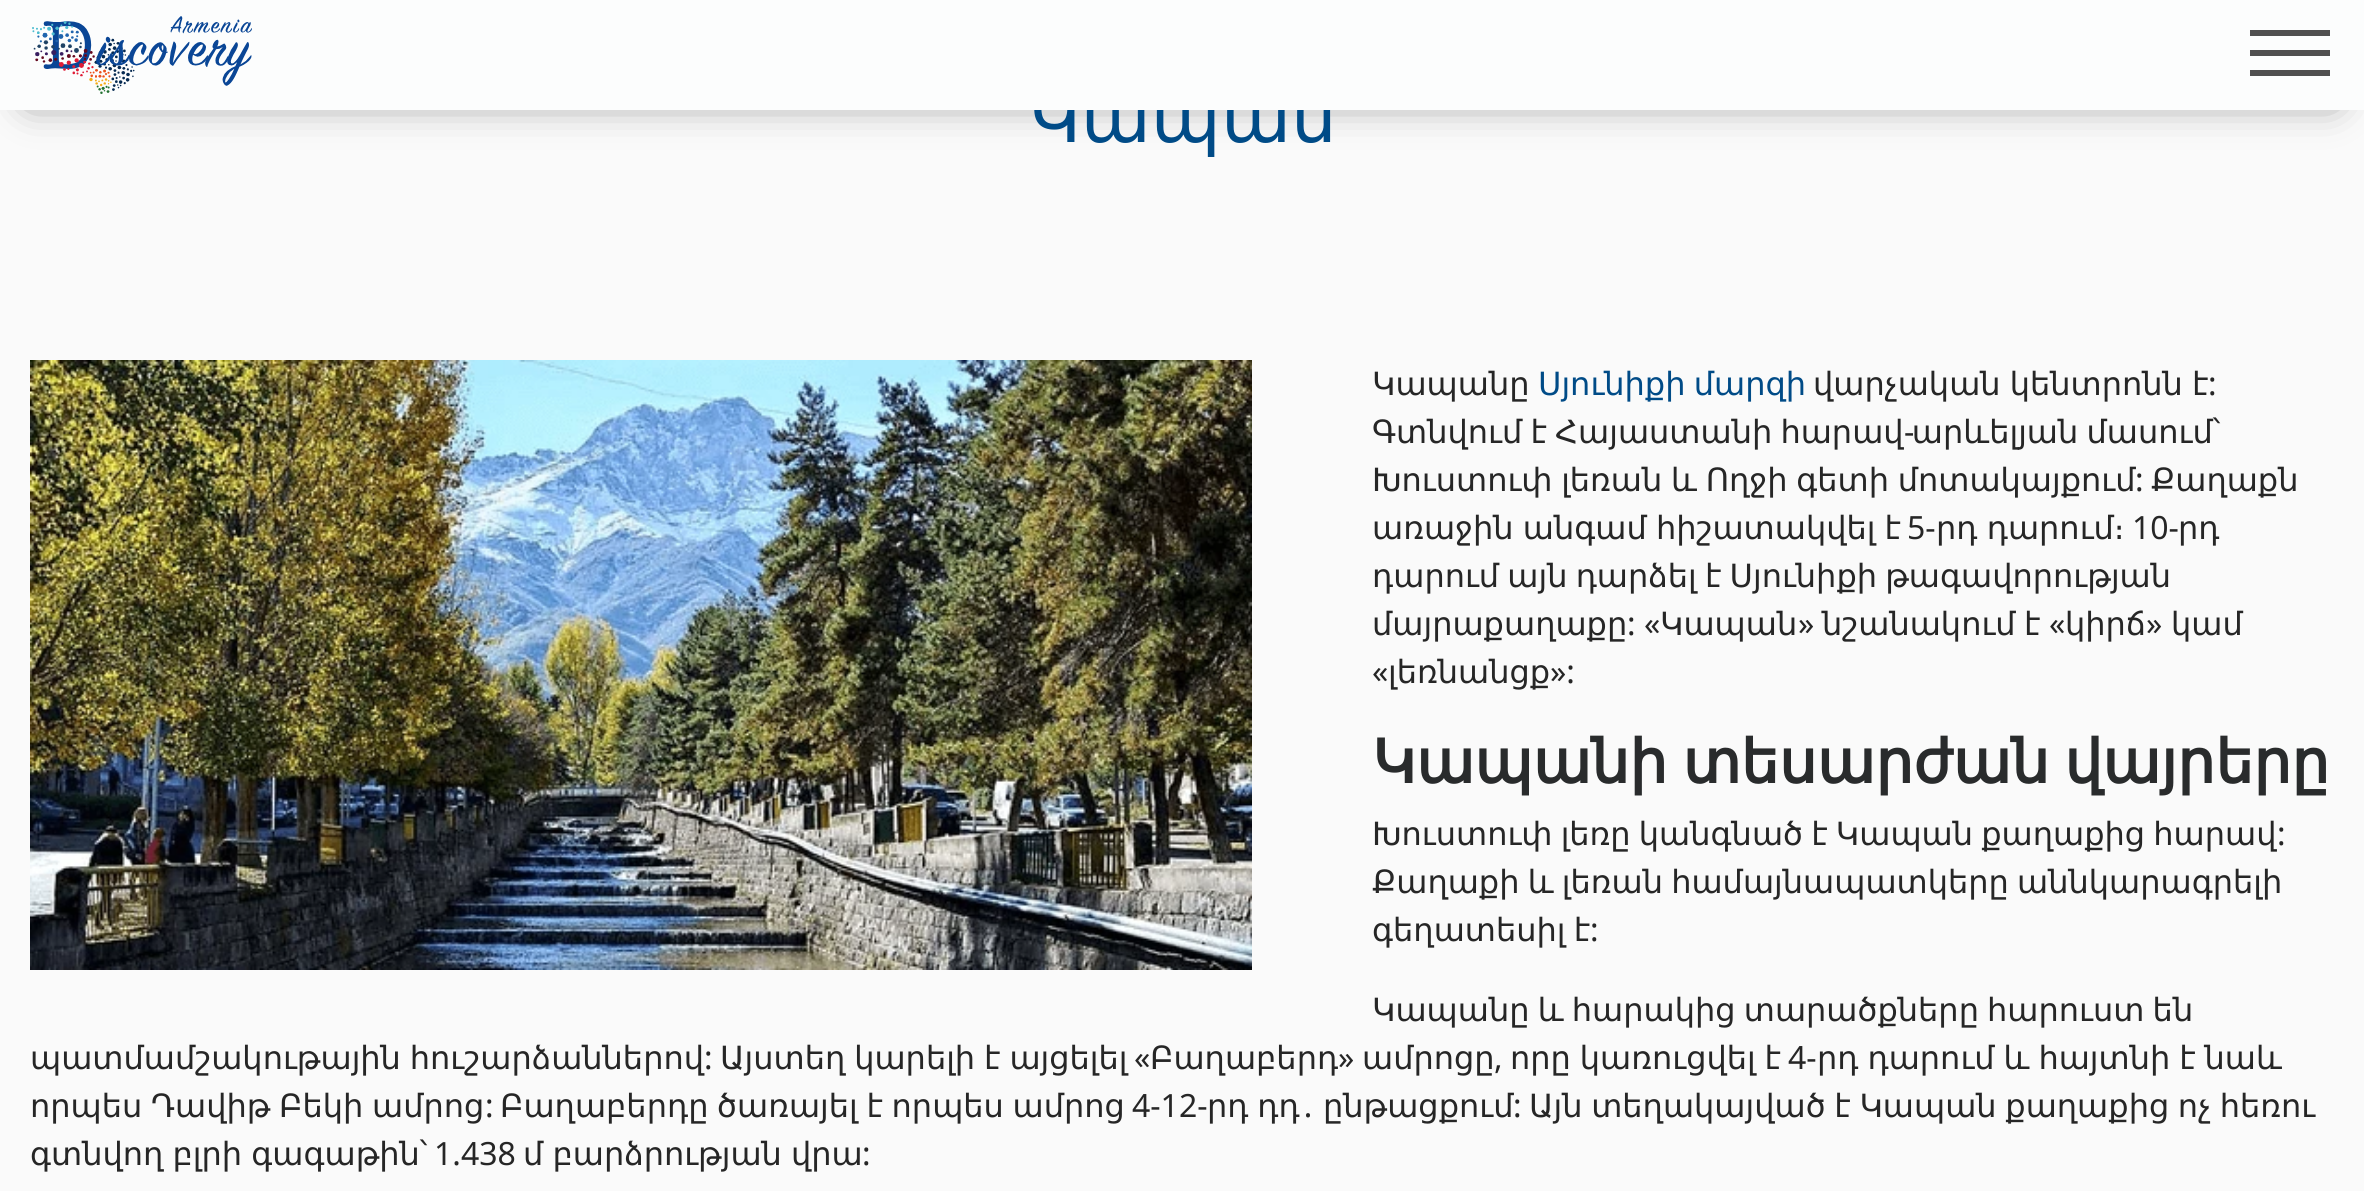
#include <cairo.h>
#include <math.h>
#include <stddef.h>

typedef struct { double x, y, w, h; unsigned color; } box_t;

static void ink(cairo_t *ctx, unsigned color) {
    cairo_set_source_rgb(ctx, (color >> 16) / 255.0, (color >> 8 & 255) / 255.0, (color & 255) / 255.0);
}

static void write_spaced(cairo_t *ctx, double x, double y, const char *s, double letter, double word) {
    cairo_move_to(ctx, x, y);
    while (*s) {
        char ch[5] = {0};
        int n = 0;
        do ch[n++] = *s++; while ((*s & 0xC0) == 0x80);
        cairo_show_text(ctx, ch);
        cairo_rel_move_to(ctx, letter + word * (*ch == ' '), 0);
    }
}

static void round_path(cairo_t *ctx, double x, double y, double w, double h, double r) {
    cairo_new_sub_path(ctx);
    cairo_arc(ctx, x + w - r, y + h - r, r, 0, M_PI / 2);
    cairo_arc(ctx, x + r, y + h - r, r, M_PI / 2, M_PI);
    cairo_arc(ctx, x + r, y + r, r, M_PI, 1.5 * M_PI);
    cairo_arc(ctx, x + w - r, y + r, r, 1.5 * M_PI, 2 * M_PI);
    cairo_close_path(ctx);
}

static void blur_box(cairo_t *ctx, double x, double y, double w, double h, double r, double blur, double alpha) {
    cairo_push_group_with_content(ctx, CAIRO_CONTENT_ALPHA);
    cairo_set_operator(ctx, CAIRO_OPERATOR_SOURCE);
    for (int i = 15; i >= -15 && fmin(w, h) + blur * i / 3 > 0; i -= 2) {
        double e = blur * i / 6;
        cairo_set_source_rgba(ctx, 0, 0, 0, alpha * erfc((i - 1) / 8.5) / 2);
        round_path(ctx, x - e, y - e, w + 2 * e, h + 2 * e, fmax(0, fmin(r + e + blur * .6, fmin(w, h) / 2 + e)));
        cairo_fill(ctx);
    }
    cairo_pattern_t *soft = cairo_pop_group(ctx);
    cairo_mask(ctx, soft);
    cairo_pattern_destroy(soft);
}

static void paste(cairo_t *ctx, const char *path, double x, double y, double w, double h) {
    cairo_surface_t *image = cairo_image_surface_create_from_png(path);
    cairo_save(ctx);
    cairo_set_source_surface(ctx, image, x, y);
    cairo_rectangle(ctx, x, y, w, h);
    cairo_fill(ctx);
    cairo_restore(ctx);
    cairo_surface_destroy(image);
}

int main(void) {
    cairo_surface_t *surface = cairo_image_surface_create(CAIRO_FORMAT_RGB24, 2364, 1191);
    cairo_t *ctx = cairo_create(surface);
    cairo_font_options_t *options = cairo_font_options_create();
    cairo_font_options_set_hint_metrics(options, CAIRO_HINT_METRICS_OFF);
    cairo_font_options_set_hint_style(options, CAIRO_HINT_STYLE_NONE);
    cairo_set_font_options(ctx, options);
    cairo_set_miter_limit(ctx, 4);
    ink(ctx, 0xFAFAFA);
    cairo_paint(ctx);
    ink(ctx, 0x808080);
    blur_box(ctx, 30, 50, 2304, 50, 0, 20, 1);
    cairo_select_font_face(ctx, "DejaVu Sans", CAIRO_FONT_SLANT_NORMAL, CAIRO_FONT_WEIGHT_NORMAL);
    cairo_set_font_size(ctx, 72);
    ink(ctx, 0x004B87);
    cairo_move_to(ctx, 1028, 142);
    cairo_show_text(ctx, "Կապան");
    ink(ctx, 0xFCFDFD);
    cairo_rectangle(ctx, 0, 0, 2364, 110);
    cairo_fill(ctx);
    paste(ctx, "media/1.png", 32, 16, 220, 78);
    {
        static const box_t items[] = {
            {2250, 30, 80, 6, 0x505050},
            {2250, 50, 80, 6, 0x505050},
            {2250, 70, 80, 6, 0x505050},
        };
        for (size_t i = 0; i < sizeof items / sizeof *items; i++) {
            ink(ctx, items[i].color);
            cairo_rectangle(ctx, items[i].x, items[i].y, items[i].w, items[i].h);
            cairo_fill(ctx);
        }
    }
    paste(ctx, "media/2.png", 30, 360, 1222, 610);
    cairo_set_font_size(ctx, 32);
    ink(ctx, 0x262626);
    cairo_move_to(ctx, 1372, 395);
    cairo_show_text(ctx, "Կապանը");
    ink(ctx, 0x004B87);
    write_spaced(ctx, 1538, 395, "Սյունիքի մարզի", 0, -2);
    ink(ctx, 0x262626);
    write_spaced(ctx, 1813, 395, "վարչական կենտրոնն է", 0, -1);
    cairo_select_font_face(ctx, "Noto Sans", CAIRO_FONT_SLANT_NORMAL, CAIRO_FONT_WEIGHT_NORMAL);
    cairo_move_to(ctx, 2208, 395);
    cairo_show_text(ctx, ":");
    cairo_select_font_face(ctx, "DejaVu Sans", CAIRO_FONT_SLANT_NORMAL, CAIRO_FONT_WEIGHT_NORMAL);
    write_spaced(ctx, 1372, 443, "Գտնվում է Հայաստանի հարավ արևելյան մասում՝", 0, -2);
    cairo_select_font_face(ctx, "Noto Sans", CAIRO_FONT_SLANT_NORMAL, CAIRO_FONT_WEIGHT_NORMAL);
    cairo_move_to(ctx, 1904, 443);
    cairo_show_text(ctx, "-");
    cairo_select_font_face(ctx, "DejaVu Sans", CAIRO_FONT_SLANT_NORMAL, CAIRO_FONT_WEIGHT_NORMAL);
    write_spaced(ctx, 1372, 491, "Խուստուփ լեռան և Ողջի գետի մոտակայքում", 0, -1.5);
    cairo_select_font_face(ctx, "Noto Sans", CAIRO_FONT_SLANT_NORMAL, CAIRO_FONT_WEIGHT_NORMAL);
    cairo_move_to(ctx, 2135, 491);
    cairo_show_text(ctx, ":");
    cairo_select_font_face(ctx, "DejaVu Sans", CAIRO_FONT_SLANT_NORMAL, CAIRO_FONT_WEIGHT_NORMAL);
    cairo_move_to(ctx, 2151, 491);
    cairo_show_text(ctx, "Քաղաքն");
    write_spaced(ctx, 1372, 539, "առաջին անգամ հիշատակվել է", 0, -1);
    cairo_select_font_face(ctx, "Noto Sans", CAIRO_FONT_SLANT_NORMAL, CAIRO_FONT_WEIGHT_NORMAL);
    cairo_move_to(ctx, 1907, 539);
    cairo_show_text(ctx, "5-");
    cairo_select_font_face(ctx, "DejaVu Sans", CAIRO_FONT_SLANT_NORMAL, CAIRO_FONT_WEIGHT_NORMAL);
    write_spaced(ctx, 1936, 539, "րդ դարում։", 0, -1);
    cairo_select_font_face(ctx, "Noto Sans", CAIRO_FONT_SLANT_NORMAL, CAIRO_FONT_WEIGHT_NORMAL);
    cairo_move_to(ctx, 2132, 539);
    cairo_show_text(ctx, "10-");
    cairo_select_font_face(ctx, "DejaVu Sans", CAIRO_FONT_SLANT_NORMAL, CAIRO_FONT_WEIGHT_NORMAL);
    cairo_move_to(ctx, 2178, 539);
    cairo_show_text(ctx, "րդ");
    write_spaced(ctx, 1372, 587, "դարում այն դարձել է Սյունիքի թագավորության", 0, -2);
    cairo_move_to(ctx, 1372, 635);
    cairo_show_text(ctx, "մայրաքաղաքը");
    cairo_select_font_face(ctx, "Noto Sans", CAIRO_FONT_SLANT_NORMAL, CAIRO_FONT_WEIGHT_NORMAL);
    cairo_move_to(ctx, 1627, 635);
    cairo_show_text(ctx, ": «");
    cairo_select_font_face(ctx, "DejaVu Sans", CAIRO_FONT_SLANT_NORMAL, CAIRO_FONT_WEIGHT_NORMAL);
    cairo_move_to(ctx, 1660, 635);
    cairo_show_text(ctx, "Կապան");
    cairo_select_font_face(ctx, "Noto Sans", CAIRO_FONT_SLANT_NORMAL, CAIRO_FONT_WEIGHT_NORMAL);
    cairo_move_to(ctx, 1798, 635);
    cairo_show_text(ctx, "»");
    cairo_select_font_face(ctx, "DejaVu Sans", CAIRO_FONT_SLANT_NORMAL, CAIRO_FONT_WEIGHT_NORMAL);
    cairo_move_to(ctx, 1822, 635);
    cairo_show_text(ctx, "նշանակում");
    cairo_move_to(ctx, 2024, 635);
    cairo_show_text(ctx, "է");
    cairo_select_font_face(ctx, "Noto Sans", CAIRO_FONT_SLANT_NORMAL, CAIRO_FONT_WEIGHT_NORMAL);
    cairo_move_to(ctx, 2049, 635);
    cairo_show_text(ctx, "«");
    cairo_select_font_face(ctx, "DejaVu Sans", CAIRO_FONT_SLANT_NORMAL, CAIRO_FONT_WEIGHT_NORMAL);
    cairo_move_to(ctx, 2065, 635);
    cairo_show_text(ctx, "կիրճ");
    cairo_select_font_face(ctx, "Noto Sans", CAIRO_FONT_SLANT_NORMAL, CAIRO_FONT_WEIGHT_NORMAL);
    cairo_move_to(ctx, 2146, 635);
    cairo_show_text(ctx, "»");
    cairo_select_font_face(ctx, "DejaVu Sans", CAIRO_FONT_SLANT_NORMAL, CAIRO_FONT_WEIGHT_NORMAL);
    cairo_move_to(ctx, 2171, 635);
    cairo_show_text(ctx, "կամ");
    cairo_select_font_face(ctx, "Noto Sans", CAIRO_FONT_SLANT_NORMAL, CAIRO_FONT_WEIGHT_NORMAL);
    cairo_move_to(ctx, 1372, 683);
    cairo_show_text(ctx, "«");
    cairo_select_font_face(ctx, "DejaVu Sans", CAIRO_FONT_SLANT_NORMAL, CAIRO_FONT_WEIGHT_NORMAL);
    cairo_move_to(ctx, 1388, 683);
    cairo_show_text(ctx, "լեռնանցք");
    cairo_select_font_face(ctx, "Noto Sans", CAIRO_FONT_SLANT_NORMAL, CAIRO_FONT_WEIGHT_NORMAL);
    cairo_move_to(ctx, 1550, 683);
    cairo_show_text(ctx, "»:");
    cairo_select_font_face(ctx, "DejaVu Sans", CAIRO_FONT_SLANT_NORMAL, CAIRO_FONT_WEIGHT_BOLD);
    cairo_set_font_size(ctx, 60);
    ink(ctx, 0x292B2C);
    write_spaced(ctx, 1372, 783, "Կապանի տեսարժան վայրերը", 0, -4);
    cairo_select_font_face(ctx, "DejaVu Sans", CAIRO_FONT_SLANT_NORMAL, CAIRO_FONT_WEIGHT_NORMAL);
    cairo_set_font_size(ctx, 32);
    ink(ctx, 0x262626);
    write_spaced(ctx, 1372, 845, "Խուստուփ լեռը կանգնած է Կապան քաղաքից հարավ", 0, -2);
    cairo_select_font_face(ctx, "Noto Sans", CAIRO_FONT_SLANT_NORMAL, CAIRO_FONT_WEIGHT_NORMAL);
    cairo_move_to(ctx, 2277, 845);
    cairo_show_text(ctx, ":");
    cairo_select_font_face(ctx, "DejaVu Sans", CAIRO_FONT_SLANT_NORMAL, CAIRO_FONT_WEIGHT_NORMAL);
    write_spaced(ctx, 1372, 893, "Քաղաքի և լեռան համայնապատկերը աննկարագրելի", 0, -2);
    write_spaced(ctx, 1372, 941, "գեղատեսիլ է", 0, -2);
    cairo_select_font_face(ctx, "Noto Sans", CAIRO_FONT_SLANT_NORMAL, CAIRO_FONT_WEIGHT_NORMAL);
    cairo_move_to(ctx, 1590, 941);
    cairo_show_text(ctx, ":");
    cairo_select_font_face(ctx, "DejaVu Sans", CAIRO_FONT_SLANT_NORMAL, CAIRO_FONT_WEIGHT_NORMAL);
    write_spaced(ctx, 1372, 1021, "Կապանը և հարակից տարածքները հարուստ են", 0, -2);
    write_spaced(ctx, 30, 1069, "պատմամշակութային հուշարձաններով", 0, -1.25);
    cairo_select_font_face(ctx, "Noto Sans", CAIRO_FONT_SLANT_NORMAL, CAIRO_FONT_WEIGHT_NORMAL);
    cairo_move_to(ctx, 704, 1069);
    cairo_show_text(ctx, ":");
    cairo_select_font_face(ctx, "DejaVu Sans", CAIRO_FONT_SLANT_NORMAL, CAIRO_FONT_WEIGHT_NORMAL);
    write_spaced(ctx, 720, 1069, "Այստեղ կարելի է այցելել", 0, -1.25);
    cairo_select_font_face(ctx, "Noto Sans", CAIRO_FONT_SLANT_NORMAL, CAIRO_FONT_WEIGHT_NORMAL);
    cairo_move_to(ctx, 1134, 1069);
    cairo_show_text(ctx, "«");
    cairo_select_font_face(ctx, "DejaVu Sans", CAIRO_FONT_SLANT_NORMAL, CAIRO_FONT_WEIGHT_NORMAL);
    cairo_move_to(ctx, 1150, 1069);
    cairo_show_text(ctx, "Բաղաբերդ");
    cairo_select_font_face(ctx, "Noto Sans", CAIRO_FONT_SLANT_NORMAL, CAIRO_FONT_WEIGHT_NORMAL);
    cairo_move_to(ctx, 1338, 1069);
    cairo_show_text(ctx, "»");
    cairo_select_font_face(ctx, "DejaVu Sans", CAIRO_FONT_SLANT_NORMAL, CAIRO_FONT_WEIGHT_NORMAL);
    cairo_move_to(ctx, 1362, 1069);
    cairo_show_text(ctx, "ամրոցը");
    write_spaced(ctx, 1510, 1069, "որը կառուցվել է", 0, -1.25);
    cairo_select_font_face(ctx, "Noto Sans", CAIRO_FONT_SLANT_NORMAL, CAIRO_FONT_WEIGHT_NORMAL);
    cairo_move_to(ctx, 1788, 1069);
    cairo_show_text(ctx, "4-");
    cairo_select_font_face(ctx, "DejaVu Sans", CAIRO_FONT_SLANT_NORMAL, CAIRO_FONT_WEIGHT_NORMAL);
    write_spaced(ctx, 1817, 1069, "րդ դարում և հայտնի է նաև", 0, -1.25);
    cairo_select_font_face(ctx, "Noto Sans", CAIRO_FONT_SLANT_NORMAL, CAIRO_FONT_WEIGHT_NORMAL);
    cairo_move_to(ctx, 1494, 1069);
    cairo_show_text(ctx, ",");
    cairo_select_font_face(ctx, "DejaVu Sans", CAIRO_FONT_SLANT_NORMAL, CAIRO_FONT_WEIGHT_NORMAL);
    write_spaced(ctx, 30, 1117, "որպես Դավիթ Բեկի ամրոց", 0, -1.5);
    cairo_select_font_face(ctx, "Noto Sans", CAIRO_FONT_SLANT_NORMAL, CAIRO_FONT_WEIGHT_NORMAL);
    cairo_move_to(ctx, 485, 1117);
    cairo_show_text(ctx, ":");
    cairo_select_font_face(ctx, "DejaVu Sans", CAIRO_FONT_SLANT_NORMAL, CAIRO_FONT_WEIGHT_NORMAL);
    write_spaced(ctx, 500, 1117, "Բաղաբերդը ծառայել է որպես ամրոց", 0, -1.5);
    cairo_select_font_face(ctx, "Noto Sans", CAIRO_FONT_SLANT_NORMAL, CAIRO_FONT_WEIGHT_NORMAL);
    cairo_move_to(ctx, 1132, 1117);
    cairo_show_text(ctx, "4-12-");
    cairo_select_font_face(ctx, "DejaVu Sans", CAIRO_FONT_SLANT_NORMAL, CAIRO_FONT_WEIGHT_NORMAL);
    write_spaced(ctx, 1207, 1117, "րդ դդ", 0, -1.5);
    cairo_select_font_face(ctx, "Noto Sans", CAIRO_FONT_SLANT_NORMAL, CAIRO_FONT_WEIGHT_NORMAL);
    cairo_move_to(ctx, 1300, 1117);
    cairo_show_text(ctx, "․");
    cairo_select_font_face(ctx, "DejaVu Sans", CAIRO_FONT_SLANT_NORMAL, CAIRO_FONT_WEIGHT_NORMAL);
    cairo_move_to(ctx, 1323, 1117);
    cairo_show_text(ctx, "ընթացքում");
    cairo_select_font_face(ctx, "Noto Sans", CAIRO_FONT_SLANT_NORMAL, CAIRO_FONT_WEIGHT_NORMAL);
    cairo_move_to(ctx, 1513, 1117);
    cairo_show_text(ctx, ":");
    cairo_select_font_face(ctx, "DejaVu Sans", CAIRO_FONT_SLANT_NORMAL, CAIRO_FONT_WEIGHT_NORMAL);
    write_spaced(ctx, 1529, 1117, "Այն տեղակայված է Կապան քաղաքից ոչ հեռու", 0, -1.5);
    write_spaced(ctx, 30, 1165, "գտնվող բլրի գագաթին՝", 0, -1);
    cairo_select_font_face(ctx, "Noto Sans", CAIRO_FONT_SLANT_NORMAL, CAIRO_FONT_WEIGHT_NORMAL);
    cairo_move_to(ctx, 434, 1165);
    cairo_show_text(ctx, "1.438");
    cairo_select_font_face(ctx, "DejaVu Sans", CAIRO_FONT_SLANT_NORMAL, CAIRO_FONT_WEIGHT_NORMAL);
    write_spaced(ctx, 523, 1165, "մ բարձրության վրա", 0, -1);
    cairo_select_font_face(ctx, "Noto Sans", CAIRO_FONT_SLANT_NORMAL, CAIRO_FONT_WEIGHT_NORMAL);
    cairo_move_to(ctx, 862, 1165);
    cairo_show_text(ctx, ":");
    cairo_surface_write_to_png(surface, "image.png");
    cairo_font_options_destroy(options);
    cairo_destroy(ctx);
    cairo_surface_destroy(surface);
    return 0;
}
